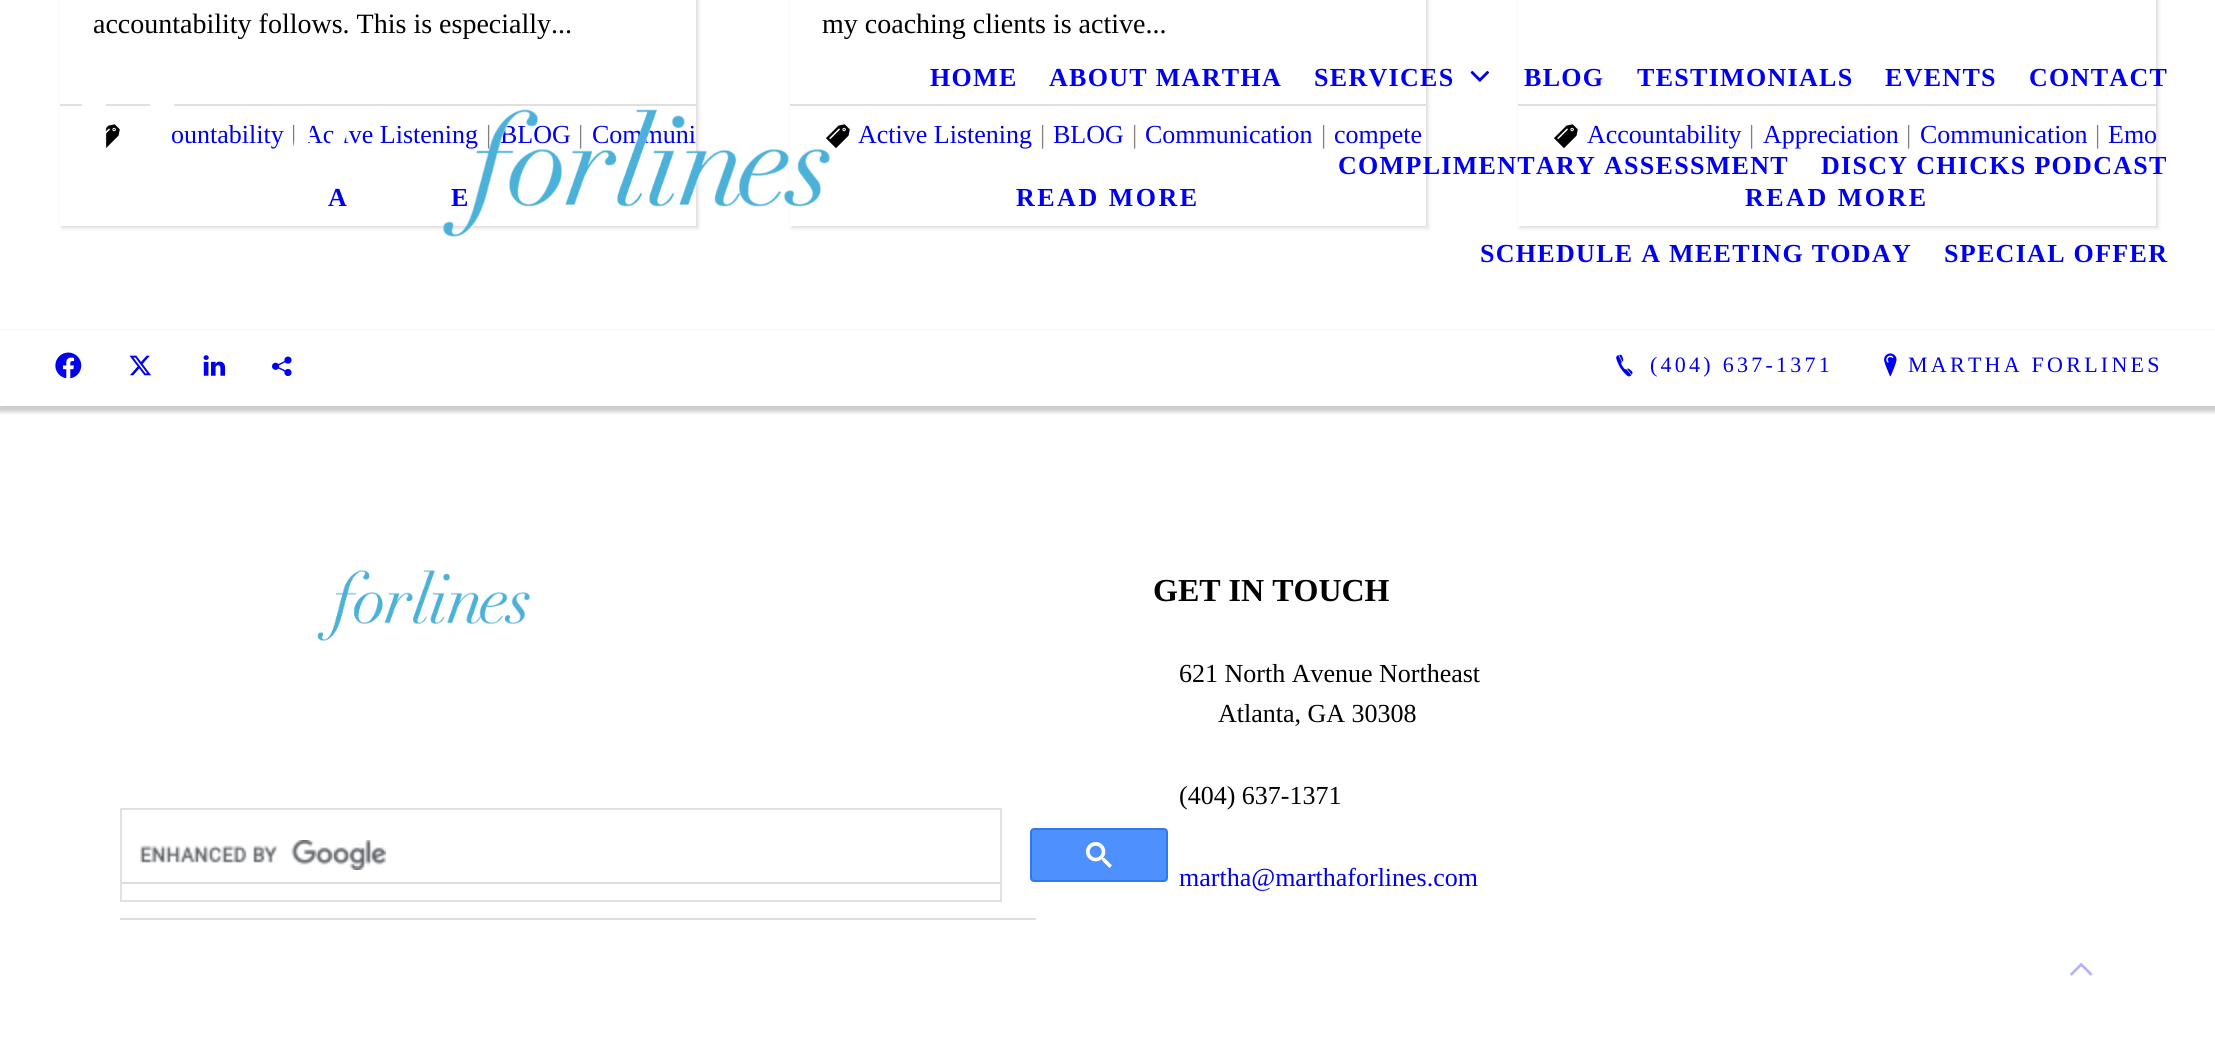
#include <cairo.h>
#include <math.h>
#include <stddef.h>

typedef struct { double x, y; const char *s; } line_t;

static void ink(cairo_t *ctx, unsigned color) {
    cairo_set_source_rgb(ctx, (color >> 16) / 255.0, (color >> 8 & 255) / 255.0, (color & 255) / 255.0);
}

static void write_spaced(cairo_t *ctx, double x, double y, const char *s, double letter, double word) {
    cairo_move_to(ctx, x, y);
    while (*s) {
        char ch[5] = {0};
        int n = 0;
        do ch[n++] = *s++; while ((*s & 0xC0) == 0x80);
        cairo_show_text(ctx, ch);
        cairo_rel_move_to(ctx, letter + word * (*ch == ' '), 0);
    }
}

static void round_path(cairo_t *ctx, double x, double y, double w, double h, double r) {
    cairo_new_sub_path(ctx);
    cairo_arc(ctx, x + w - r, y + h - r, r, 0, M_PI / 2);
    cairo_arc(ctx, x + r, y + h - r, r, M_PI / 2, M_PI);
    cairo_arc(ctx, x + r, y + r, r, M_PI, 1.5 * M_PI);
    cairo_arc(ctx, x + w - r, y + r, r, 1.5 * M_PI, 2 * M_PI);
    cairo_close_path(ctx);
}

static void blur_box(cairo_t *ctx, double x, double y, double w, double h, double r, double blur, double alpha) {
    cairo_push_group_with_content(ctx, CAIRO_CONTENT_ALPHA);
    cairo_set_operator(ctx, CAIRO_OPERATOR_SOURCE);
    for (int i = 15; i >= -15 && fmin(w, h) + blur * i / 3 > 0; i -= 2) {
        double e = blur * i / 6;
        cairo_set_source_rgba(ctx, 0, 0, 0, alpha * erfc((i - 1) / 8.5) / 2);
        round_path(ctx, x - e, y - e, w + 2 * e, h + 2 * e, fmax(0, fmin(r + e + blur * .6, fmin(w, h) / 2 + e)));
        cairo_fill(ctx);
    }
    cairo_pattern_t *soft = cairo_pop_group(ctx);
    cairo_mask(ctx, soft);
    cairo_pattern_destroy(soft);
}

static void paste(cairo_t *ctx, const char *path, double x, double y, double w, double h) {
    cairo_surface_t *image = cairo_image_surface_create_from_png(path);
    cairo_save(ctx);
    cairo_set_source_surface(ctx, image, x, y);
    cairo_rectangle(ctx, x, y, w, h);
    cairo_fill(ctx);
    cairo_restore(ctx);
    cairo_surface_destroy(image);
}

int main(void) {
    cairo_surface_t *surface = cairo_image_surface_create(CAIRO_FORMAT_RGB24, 2215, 1043);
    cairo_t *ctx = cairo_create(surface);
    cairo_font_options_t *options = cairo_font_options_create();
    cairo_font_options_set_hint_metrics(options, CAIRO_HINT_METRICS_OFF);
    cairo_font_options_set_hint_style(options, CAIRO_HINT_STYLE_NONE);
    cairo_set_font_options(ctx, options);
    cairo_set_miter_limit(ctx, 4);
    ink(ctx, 0xFFFFFF);
    cairo_paint(ctx);
    cairo_save(ctx);
    cairo_set_fill_rule(ctx, CAIRO_FILL_RULE_EVEN_ODD);
    cairo_new_path(ctx);
    cairo_move_to(ctx, 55, 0);
    cairo_line_to(ctx, 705, 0);
    cairo_line_to(ctx, 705, 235);
    cairo_line_to(ctx, 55, 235);
    cairo_close_path(ctx);
    cairo_move_to(ctx, 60, -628);
    cairo_line_to(ctx, 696, -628);
    cairo_line_to(ctx, 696, 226);
    cairo_line_to(ctx, 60, 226);
    cairo_close_path(ctx);
    cairo_clip(ctx);
    ink(ctx, 0x000000);
    blur_box(ctx, 62, -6, 636, 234, 0, 2, 0.15);
    cairo_restore(ctx);
    cairo_select_font_face(ctx, "Liberation Serif", CAIRO_FONT_SLANT_NORMAL, CAIRO_FONT_WEIGHT_NORMAL);
    cairo_set_font_size(ctx, 28);
    ink(ctx, 0x000000);
    cairo_move_to(ctx, 93, 33);
    cairo_show_text(ctx, "accountability follows. This is especially...");
    ink(ctx, 0xE0E0E0);
    cairo_rectangle(ctx, 60, 104, 636, 2);
    cairo_fill(ctx);
    paste(ctx, "media/1.png", 105, 124, 15, 24);
    cairo_set_font_size(ctx, 26);
    ink(ctx, 0x0000EE);
    cairo_move_to(ctx, 171, 143);
    cairo_show_text(ctx, "ountability");
    ink(ctx, 0x808080);
    cairo_move_to(ctx, 291, 143);
    cairo_show_text(ctx, "|");
    ink(ctx, 0x0000EE);
    cairo_move_to(ctx, 304, 143);
    cairo_show_text(ctx, "Active Listening");
    ink(ctx, 0x808080);
    cairo_move_to(ctx, 486, 143);
    cairo_show_text(ctx, "|");
    ink(ctx, 0x0000EE);
    cairo_move_to(ctx, 500, 143);
    cairo_show_text(ctx, "BLOG");
    ink(ctx, 0x808080);
    cairo_move_to(ctx, 578, 143);
    cairo_show_text(ctx, "|");
    ink(ctx, 0x0000EE);
    cairo_move_to(ctx, 592, 143);
    cairo_show_text(ctx, "Communi");
    cairo_select_font_face(ctx, "Liberation Serif", CAIRO_FONT_SLANT_NORMAL, CAIRO_FONT_WEIGHT_BOLD);
    write_spaced(ctx, 328, 206, "A", 2.5, 0);
    write_spaced(ctx, 451, 206, "E", 2.5, 0);
    cairo_save(ctx);
    cairo_set_fill_rule(ctx, CAIRO_FILL_RULE_EVEN_ODD);
    cairo_new_path(ctx);
    cairo_move_to(ctx, 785, 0);
    cairo_line_to(ctx, 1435, 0);
    cairo_line_to(ctx, 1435, 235);
    cairo_line_to(ctx, 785, 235);
    cairo_close_path(ctx);
    cairo_move_to(ctx, 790, -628);
    cairo_line_to(ctx, 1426, -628);
    cairo_line_to(ctx, 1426, 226);
    cairo_line_to(ctx, 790, 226);
    cairo_close_path(ctx);
    cairo_clip(ctx);
    ink(ctx, 0x000000);
    blur_box(ctx, 792, -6, 636, 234, 0, 2, 0.15);
    cairo_restore(ctx);
    cairo_select_font_face(ctx, "Liberation Serif", CAIRO_FONT_SLANT_NORMAL, CAIRO_FONT_WEIGHT_NORMAL);
    cairo_set_font_size(ctx, 28);
    ink(ctx, 0x000000);
    cairo_move_to(ctx, 822, 33);
    cairo_show_text(ctx, "my coaching clients is active...");
    ink(ctx, 0xE0E0E0);
    cairo_rectangle(ctx, 790, 104, 636, 2);
    cairo_fill(ctx);
    paste(ctx, "media/2.png", 826, 124, 24, 24);
    cairo_set_font_size(ctx, 26);
    ink(ctx, 0x0000EE);
    cairo_move_to(ctx, 858, 143);
    cairo_show_text(ctx, "Active Listening");
    ink(ctx, 0x808080);
    cairo_move_to(ctx, 1040, 143);
    cairo_show_text(ctx, "|");
    ink(ctx, 0x0000EE);
    cairo_move_to(ctx, 1053, 143);
    cairo_show_text(ctx, "BLOG");
    ink(ctx, 0x808080);
    cairo_move_to(ctx, 1132, 143);
    cairo_show_text(ctx, "|");
    ink(ctx, 0x0000EE);
    cairo_move_to(ctx, 1145, 143);
    cairo_show_text(ctx, "Communication");
    ink(ctx, 0x808080);
    cairo_move_to(ctx, 1321, 143);
    cairo_show_text(ctx, "|");
    ink(ctx, 0x0000EE);
    cairo_move_to(ctx, 1334, 143);
    cairo_show_text(ctx, "compete");
    cairo_select_font_face(ctx, "Liberation Serif", CAIRO_FONT_SLANT_NORMAL, CAIRO_FONT_WEIGHT_BOLD);
    write_spaced(ctx, 1016, 206, "READ MORE", 2.5, 0);
    cairo_save(ctx);
    cairo_set_fill_rule(ctx, CAIRO_FILL_RULE_EVEN_ODD);
    cairo_new_path(ctx);
    cairo_move_to(ctx, 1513, 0);
    cairo_line_to(ctx, 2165, 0);
    cairo_line_to(ctx, 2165, 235);
    cairo_line_to(ctx, 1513, 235);
    cairo_close_path(ctx);
    cairo_move_to(ctx, 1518, -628);
    cairo_line_to(ctx, 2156, -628);
    cairo_line_to(ctx, 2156, 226);
    cairo_line_to(ctx, 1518, 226);
    cairo_close_path(ctx);
    cairo_clip(ctx);
    ink(ctx, 0x000000);
    blur_box(ctx, 1520, -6, 638, 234, 0, 2, 0.15);
    cairo_restore(ctx);
    ink(ctx, 0xE0E0E0);
    cairo_rectangle(ctx, 1518, 104, 638, 2);
    cairo_fill(ctx);
    paste(ctx, "media/2.png", 1554, 124, 24, 24);
    cairo_select_font_face(ctx, "Liberation Serif", CAIRO_FONT_SLANT_NORMAL, CAIRO_FONT_WEIGHT_NORMAL);
    ink(ctx, 0x0000EE);
    cairo_move_to(ctx, 1587, 143);
    cairo_show_text(ctx, "Accountability");
    ink(ctx, 0x808080);
    cairo_move_to(ctx, 1749, 143);
    cairo_show_text(ctx, "|");
    ink(ctx, 0x0000EE);
    cairo_move_to(ctx, 1763, 143);
    cairo_show_text(ctx, "Appreciation");
    ink(ctx, 0x808080);
    cairo_move_to(ctx, 1906, 143);
    cairo_show_text(ctx, "|");
    ink(ctx, 0x0000EE);
    cairo_move_to(ctx, 1920, 143);
    cairo_show_text(ctx, "Communication");
    ink(ctx, 0x808080);
    cairo_move_to(ctx, 2095, 143);
    cairo_show_text(ctx, "|");
    cairo_save(ctx);
    cairo_rectangle(ctx, 1518, 114, 638, 38);
    cairo_clip(ctx);
    ink(ctx, 0x0000EE);
    cairo_move_to(ctx, 2108, 143);
    cairo_show_text(ctx, "Emo");
    cairo_restore(ctx);
    cairo_select_font_face(ctx, "Liberation Serif", CAIRO_FONT_SLANT_NORMAL, CAIRO_FONT_WEIGHT_BOLD);
    ink(ctx, 0x0000EE);
    write_spaced(ctx, 1745, 206, "READ MORE", 2.5, 0);
    paste(ctx, "media/3.png", 82, 104, 748, 133);
    {
        static const line_t items[] = {
            {930, 86, "HOME"},
            {1049, 86, "ABOUT MARTHA"},
            {1314, 86, "SERVICES"},
        };
        for (size_t i = 0; i < sizeof items / sizeof *items; i++) {
            write_spaced(ctx, items[i].x, items[i].y, items[i].s, 1.3, 0);
        }
    }
    cairo_select_font_face(ctx, "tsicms", CAIRO_FONT_SLANT_NORMAL, CAIRO_FONT_WEIGHT_BOLD);
    cairo_set_font_size(ctx, 23);
    write_spaced(ctx, 1468, 86, "-", 1.3, 0);
    cairo_select_font_face(ctx, "Liberation Serif", CAIRO_FONT_SLANT_NORMAL, CAIRO_FONT_WEIGHT_BOLD);
    cairo_set_font_size(ctx, 26);
    {
        static const line_t items[] = {
            {1524, 86, "BLOG"},
            {1637, 86, "TESTIMONIALS"},
            {1885, 86, "EVENTS"},
            {2029, 86, "CONTACT"},
            {1338, 174, "COMPLIMENTARY ASSESSMENT"},
            {1821, 174, "DISCY CHICKS PODCAST"},
            {1480, 262, "SCHEDULE A MEETING TODAY"},
            {1944, 262, "SPECIAL OFFER"},
        };
        for (size_t i = 0; i < sizeof items / sizeof *items; i++) {
            write_spaced(ctx, items[i].x, items[i].y, items[i].s, 1.3, 0);
        }
    }
    cairo_save(ctx);
    cairo_set_fill_rule(ctx, CAIRO_FILL_RULE_EVEN_ODD);
    cairo_new_path(ctx);
    cairo_move_to(ctx, 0, 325);
    cairo_line_to(ctx, 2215, 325);
    cairo_line_to(ctx, 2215, 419);
    cairo_line_to(ctx, 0, 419);
    cairo_close_path(ctx);
    cairo_move_to(ctx, 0, 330);
    cairo_line_to(ctx, 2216, 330);
    cairo_line_to(ctx, 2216, 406);
    cairo_line_to(ctx, 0, 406);
    cairo_close_path(ctx);
    cairo_clip(ctx);
    ink(ctx, 0x000000);
    blur_box(ctx, -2, 332, 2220, 80, 0, 2, 0.2);
    cairo_restore(ctx);
    paste(ctx, "media/4.png", 55, 352, 27, 27);
    paste(ctx, "media/5.png", 129, 355, 22, 21);
    paste(ctx, "media/6.png", 203, 355, 23, 21);
    cairo_select_font_face(ctx, "tsicms", CAIRO_FONT_SLANT_NORMAL, CAIRO_FONT_WEIGHT_NORMAL);
    cairo_set_font_size(ctx, 29);
    cairo_move_to(ctx, 272, 379);
    cairo_show_text(ctx, "@");
    paste(ctx, "media/7.png", 1616, 354, 17, 23);
    cairo_select_font_face(ctx, "Liberation Serif", CAIRO_FONT_SLANT_NORMAL, CAIRO_FONT_WEIGHT_NORMAL);
    cairo_set_font_size(ctx, 22);
    write_spaced(ctx, 1650, 372, "(404) 637-1371", 3.25, 0);
    paste(ctx, "media/8.png", 1884, 353, 13, 24);
    write_spaced(ctx, 1908, 372, "MARTHA FORLINES", 3.25, 0);
    paste(ctx, "media/9.png", 317, 570, 213, 71);
    cairo_rectangle(ctx, 121, 809, 880, 92);
    ink(ctx, 0xDFE1E5);
    cairo_stroke(ctx);
    ink(ctx, 0xDDDDDD);
    cairo_rectangle(ctx, 122, 882, 878, 2);
    cairo_fill(ctx);
    paste(ctx, "media/10.png", 140, 840, 246, 30);
    cairo_rectangle(ctx, 120, 918, 916, 2);
    cairo_fill(ctx);
    ink(ctx, 0x4D90FE);
    round_path(ctx, 1031, 829, 136, 52, 3);
    cairo_fill_preserve(ctx);
    ink(ctx, 0x3079ED);
    cairo_stroke(ctx);
    paste(ctx, "media/11.png", 1086, 842, 26, 26);
    cairo_select_font_face(ctx, "Liberation Serif", CAIRO_FONT_SLANT_NORMAL, CAIRO_FONT_WEIGHT_BOLD);
    cairo_set_font_size(ctx, 32);
    ink(ctx, 0x000000);
    cairo_move_to(ctx, 1153, 601);
    cairo_show_text(ctx, "GET IN TOUCH");
    cairo_select_font_face(ctx, "Liberation Serif", CAIRO_FONT_SLANT_NORMAL, CAIRO_FONT_WEIGHT_NORMAL);
    cairo_set_font_size(ctx, 26);
    {
        static const line_t items[] = {
            {1179, 682, "621 North Avenue Northeast"},
            {1218, 722, "Atlanta, GA 30308"},
            {1179, 804, "(404) 637-1371"},
        };
        for (size_t i = 0; i < sizeof items / sizeof *items; i++) {
            cairo_move_to(ctx, items[i].x, items[i].y);
            cairo_show_text(ctx, items[i].s);
        }
    }
    ink(ctx, 0x0000EE);
    cairo_move_to(ctx, 1179, 886);
    cairo_show_text(ctx, "martha@marthaforlines.com");
    cairo_select_font_face(ctx, "tsicms", CAIRO_FONT_SLANT_NORMAL, CAIRO_FONT_WEIGHT_NORMAL);
    cairo_set_font_size(ctx, 29);
    ink(ctx, 0xB3B3FA);
    cairo_move_to(ctx, 2070, 981);
    cairo_show_text(ctx, "+");
    cairo_surface_write_to_png(surface, "image.png");
    cairo_font_options_destroy(options);
    cairo_destroy(ctx);
    cairo_surface_destroy(surface);
    return 0;
}
